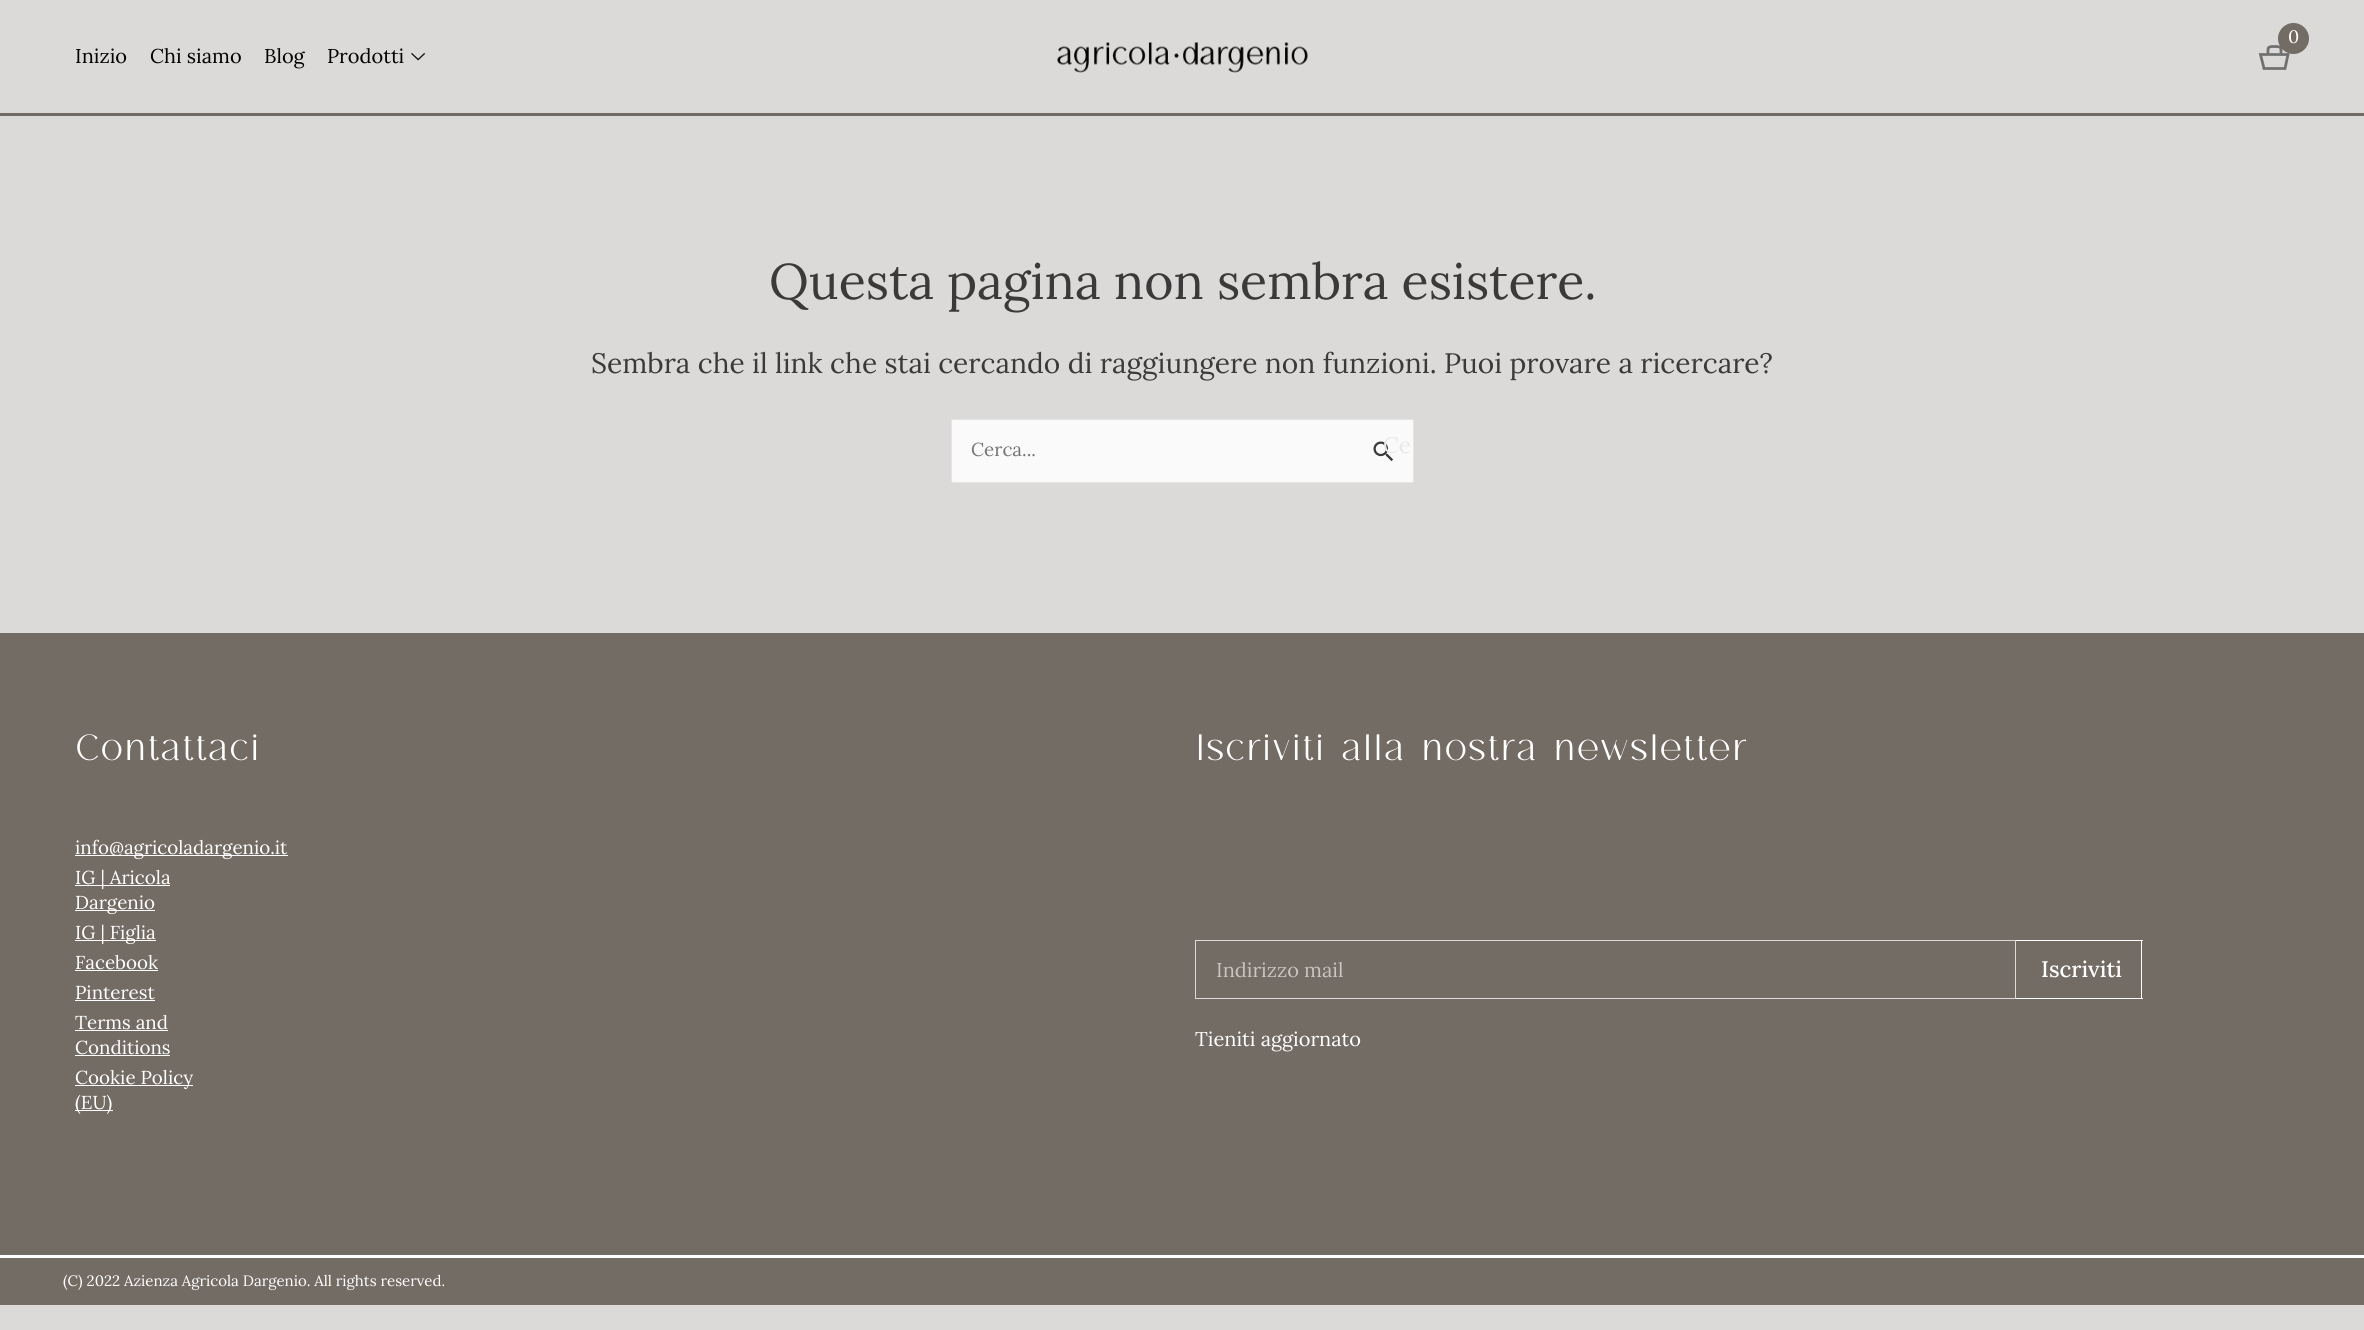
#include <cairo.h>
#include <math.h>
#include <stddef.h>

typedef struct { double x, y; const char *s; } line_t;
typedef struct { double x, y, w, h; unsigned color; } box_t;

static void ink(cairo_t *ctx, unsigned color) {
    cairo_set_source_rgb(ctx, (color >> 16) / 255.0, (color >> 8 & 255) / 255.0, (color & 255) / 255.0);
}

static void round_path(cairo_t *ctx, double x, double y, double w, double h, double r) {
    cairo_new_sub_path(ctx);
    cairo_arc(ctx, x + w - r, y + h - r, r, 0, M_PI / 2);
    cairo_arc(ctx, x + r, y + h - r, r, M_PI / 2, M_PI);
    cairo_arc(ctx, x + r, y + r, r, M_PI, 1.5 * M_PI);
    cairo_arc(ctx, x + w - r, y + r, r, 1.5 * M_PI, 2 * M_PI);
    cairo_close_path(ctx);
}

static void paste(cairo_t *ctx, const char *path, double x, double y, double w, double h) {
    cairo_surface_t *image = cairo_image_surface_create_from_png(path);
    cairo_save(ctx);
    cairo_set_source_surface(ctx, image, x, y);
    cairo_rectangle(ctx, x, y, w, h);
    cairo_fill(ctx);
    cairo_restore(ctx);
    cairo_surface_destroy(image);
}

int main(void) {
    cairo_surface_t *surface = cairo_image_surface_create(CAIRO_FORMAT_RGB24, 2364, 1330);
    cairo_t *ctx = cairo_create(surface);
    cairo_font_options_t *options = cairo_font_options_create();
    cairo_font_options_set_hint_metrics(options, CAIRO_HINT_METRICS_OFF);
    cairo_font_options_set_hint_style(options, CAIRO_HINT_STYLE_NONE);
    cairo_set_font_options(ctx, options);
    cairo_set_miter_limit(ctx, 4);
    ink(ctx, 0xDCDAD8);
    cairo_paint(ctx);
    ink(ctx, 0x736C64);
    cairo_rectangle(ctx, 0, 113, 2364, 3);
    cairo_fill(ctx);
    cairo_new_path(ctx);
    cairo_move_to(ctx, 2288, 54.5);
    cairo_line_to(ctx, 2285, 68.5);
    cairo_line_to(ctx, 2264, 68.5);
    cairo_line_to(ctx, 2260.5, 54.5);
    cairo_close_path(ctx);
    cairo_move_to(ctx, 2268, 54.5);
    cairo_curve_to(ctx, 2268, 47.5, 2267, 46.5, 2274.5, 46.5);
    cairo_curve_to(ctx, 2282, 46.5, 2281, 47.5, 2281, 54.5);
    ink(ctx, 0x707070);
    cairo_set_line_width(ctx, 2.8);
    cairo_stroke(ctx);
    ink(ctx, 0x726C64);
    cairo_arc(ctx, 2293.5, 38.5, 15.5, 0, 2 * M_PI);
    cairo_fill(ctx);
    cairo_select_font_face(ctx, "Lora", CAIRO_FONT_SLANT_NORMAL, CAIRO_FONT_WEIGHT_NORMAL);
    cairo_set_font_size(ctx, 18);
    ink(ctx, 0xFFFFFF);
    cairo_move_to(ctx, 2288, 43);
    cairo_show_text(ctx, "0");
    cairo_set_font_size(ctx, 20);
    ink(ctx, 0x000000);
    {
        static const line_t items[] = {
            {75, 63, "Inizio"},
            {150, 63, "Chi siamo"},
            {264, 63, "Blog"},
            {327, 63, "Prodotti"},
        };
        for (size_t i = 0; i < sizeof items / sizeof *items; i++) {
            cairo_move_to(ctx, items[i].x, items[i].y);
            cairo_show_text(ctx, items[i].s);
        }
    }
    paste(ctx, "media/1.png", 411, 53, 14, 8);
    paste(ctx, "media/2.png", 1057, 42, 251, 31);
    cairo_set_font_size(ctx, 50);
    ink(ctx, 0x3A3A3A);
    cairo_move_to(ctx, 769, 299);
    cairo_show_text(ctx, "Questa pagina non sembra esistere.");
    cairo_set_font_size(ctx, 28.1);
    cairo_move_to(ctx, 591, 373);
    cairo_show_text(ctx, "Sembra che il link che stai cercando di raggiungere non funzioni. Puoi provare a ricercare?");
    ink(ctx, 0xFAFAFA);
    round_path(ctx, 951.5, 419.5, 462, 63, 2);
    cairo_fill_preserve(ctx);
    ink(ctx, 0xE5E5E5);
    cairo_set_line_width(ctx, 1);
    cairo_stroke(ctx);
    cairo_set_font_size(ctx, 18.75);
    ink(ctx, 0x757575);
    cairo_move_to(ctx, 971, 456);
    cairo_show_text(ctx, "Cerca...");
    paste(ctx, "media/3.png", 1373, 441, 20, 21);
    cairo_set_font_size(ctx, 22.5);
    ink(ctx, 0xE8E8E8);
    cairo_move_to(ctx, 1383, 453);
    cairo_show_text(ctx, "Ce");
    ink(ctx, 0x736C64);
    cairo_rectangle(ctx, 0, 633, 2364, 622);
    cairo_fill(ctx);
    cairo_select_font_face(ctx, "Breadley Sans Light", CAIRO_FONT_SLANT_NORMAL, CAIRO_FONT_WEIGHT_NORMAL);
    cairo_set_font_size(ctx, 50);
    ink(ctx, 0xFFFFFF);
    cairo_move_to(ctx, 75, 760);
    cairo_show_text(ctx, "Contattaci");
    cairo_rectangle(ctx, 75, 855, 213, 1);
    cairo_fill(ctx);
    cairo_select_font_face(ctx, "Lora", CAIRO_FONT_SLANT_NORMAL, CAIRO_FONT_WEIGHT_NORMAL);
    cairo_set_font_size(ctx, 18.75);
    cairo_move_to(ctx, 75, 854);
    cairo_show_text(ctx, "info@agricoladargenio.it");
    cairo_rectangle(ctx, 75, 885, 95, 1);
    cairo_fill(ctx);
    cairo_move_to(ctx, 75, 884);
    cairo_show_text(ctx, "IG | Aricola");
    cairo_rectangle(ctx, 75, 910, 80, 1);
    cairo_fill(ctx);
    cairo_move_to(ctx, 75, 909);
    cairo_show_text(ctx, "Dargenio");
    cairo_rectangle(ctx, 75, 940, 81, 1);
    cairo_fill(ctx);
    cairo_move_to(ctx, 75, 939);
    cairo_show_text(ctx, "IG | Figlia");
    cairo_move_to(ctx, 75, 969);
    cairo_show_text(ctx, "Facebook");
    cairo_rectangle(ctx, 75, 970, 83, 1);
    cairo_fill(ctx);
    cairo_move_to(ctx, 75, 999);
    cairo_show_text(ctx, "Pinterest");
    cairo_rectangle(ctx, 75, 1000, 80, 1);
    cairo_fill(ctx);
    cairo_move_to(ctx, 75, 1029);
    cairo_show_text(ctx, "Terms and");
    cairo_rectangle(ctx, 75, 1030, 93, 1);
    cairo_fill(ctx);
    cairo_move_to(ctx, 75, 1054);
    cairo_show_text(ctx, "Conditions");
    cairo_rectangle(ctx, 75, 1055, 95, 1);
    cairo_fill(ctx);
    cairo_rectangle(ctx, 75, 1085, 118, 1);
    cairo_fill(ctx);
    cairo_move_to(ctx, 75, 1084);
    cairo_show_text(ctx, "Cookie Policy");
    cairo_rectangle(ctx, 75, 1110, 38, 1);
    cairo_fill(ctx);
    cairo_move_to(ctx, 75, 1109);
    cairo_show_text(ctx, "(EU)");
    cairo_select_font_face(ctx, "Breadley Sans Light", CAIRO_FONT_SLANT_NORMAL, CAIRO_FONT_WEIGHT_NORMAL);
    cairo_set_font_size(ctx, 50);
    cairo_move_to(ctx, 1195, 760);
    cairo_show_text(ctx, "Iscriviti alla nostra newsletter");
    cairo_rectangle(ctx, 1195.5, 940.5, 820, 58);
    ink(ctx, 0xDCDAD8);
    cairo_stroke(ctx);
    cairo_select_font_face(ctx, "Lora", CAIRO_FONT_SLANT_NORMAL, CAIRO_FONT_WEIGHT_NORMAL);
    cairo_set_font_size(ctx, 20);
    ink(ctx, 0xC7C4C1);
    cairo_move_to(ctx, 1216, 977);
    cairo_show_text(ctx, "Indirizzo mail");
    {
        static const box_t items[] = {
            {2016, 940, 127, 1, 0xFFFFFF},
            {2141, 940, 1, 59, 0xFFFFFF},
            {2016, 998, 127, 1, 0xFFFFFF},
        };
        for (size_t i = 0; i < sizeof items / sizeof *items; i++) {
            ink(ctx, items[i].color);
            cairo_rectangle(ctx, items[i].x, items[i].y, items[i].w, items[i].h);
            cairo_fill(ctx);
        }
    }
    cairo_select_font_face(ctx, "Lora Medium", CAIRO_FONT_SLANT_NORMAL, CAIRO_FONT_WEIGHT_NORMAL);
    cairo_set_font_size(ctx, 22.5);
    cairo_move_to(ctx, 2041, 977);
    cairo_show_text(ctx, "Iscriviti");
    cairo_select_font_face(ctx, "Lora", CAIRO_FONT_SLANT_NORMAL, CAIRO_FONT_WEIGHT_NORMAL);
    cairo_set_font_size(ctx, 20);
    cairo_move_to(ctx, 1195, 1046);
    cairo_show_text(ctx, "Tieniti aggiornato");
    ink(ctx, 0x736C64);
    cairo_rectangle(ctx, 0, 1258, 2364, 47);
    cairo_fill(ctx);
    ink(ctx, 0xFFFFFF);
    cairo_rectangle(ctx, 0, 1255, 2364, 3);
    cairo_fill(ctx);
    cairo_set_font_size(ctx, 15);
    cairo_move_to(ctx, 63, 1286);
    cairo_show_text(ctx, "(C) 2022 Azienza Agricola Dargenio. All rights reserved.");
    cairo_surface_write_to_png(surface, "image.png");
    cairo_font_options_destroy(options);
    cairo_destroy(ctx);
    cairo_surface_destroy(surface);
    return 0;
}
